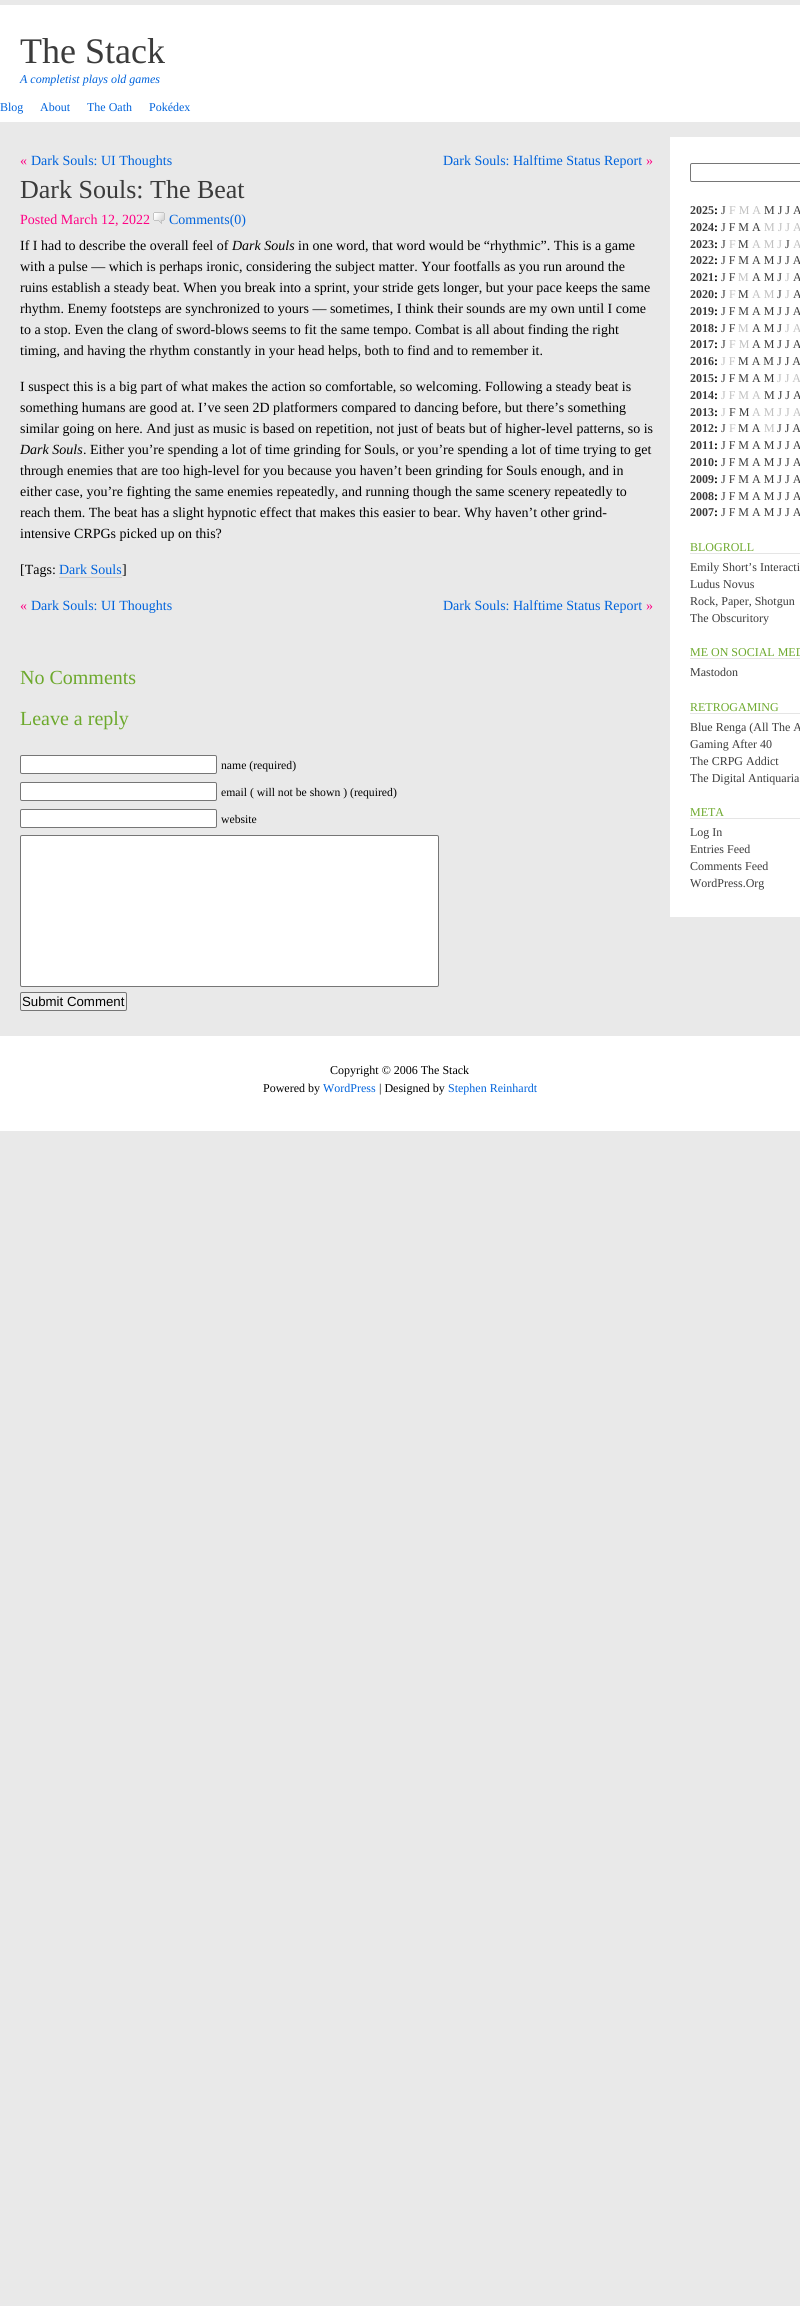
#include <cairo.h>
#include <math.h>
#include <stddef.h>

typedef struct { double x, y; const char *s; } line_t;

static void ink(cairo_t *ctx, unsigned color) {
    cairo_set_source_rgb(ctx, (color >> 16) / 255.0, (color >> 8 & 255) / 255.0, (color & 255) / 255.0);
}

static void round_path(cairo_t *ctx, double x, double y, double w, double h, double r) {
    cairo_new_sub_path(ctx);
    cairo_arc(ctx, x + w - r, y + h - r, r, 0, M_PI / 2);
    cairo_arc(ctx, x + r, y + h - r, r, M_PI / 2, M_PI);
    cairo_arc(ctx, x + r, y + r, r, M_PI, 1.5 * M_PI);
    cairo_arc(ctx, x + w - r, y + r, r, 1.5 * M_PI, 2 * M_PI);
    cairo_close_path(ctx);
}

static void paste(cairo_t *ctx, const char *path, double x, double y, double w, double h) {
    cairo_surface_t *image = cairo_image_surface_create_from_png(path);
    cairo_save(ctx);
    cairo_set_source_surface(ctx, image, x, y);
    cairo_rectangle(ctx, x, y, w, h);
    cairo_fill(ctx);
    cairo_restore(ctx);
    cairo_surface_destroy(image);
}

int main(void) {
    cairo_surface_t *surface = cairo_image_surface_create(CAIRO_FORMAT_RGB24, 800, 2306);
    cairo_t *ctx = cairo_create(surface);
    cairo_font_options_t *options = cairo_font_options_create();
    cairo_font_options_set_hint_metrics(options, CAIRO_HINT_METRICS_OFF);
    cairo_font_options_set_hint_style(options, CAIRO_HINT_STYLE_NONE);
    cairo_set_font_options(ctx, options);
    cairo_set_miter_limit(ctx, 4);
    ink(ctx, 0xE9E9E9);
    cairo_paint(ctx);
    ink(ctx, 0xFFFFFF);
    cairo_rectangle(ctx, 0, 5, 800, 117);
    cairo_fill(ctx);
    cairo_select_font_face(ctx, "Liberation Serif", CAIRO_FONT_SLANT_NORMAL, CAIRO_FONT_WEIGHT_NORMAL);
    cairo_set_font_size(ctx, 36);
    ink(ctx, 0x3B3B3B);
    cairo_move_to(ctx, 20, 63);
    cairo_show_text(ctx, "The Stack");
    cairo_select_font_face(ctx, "Liberation Serif", CAIRO_FONT_SLANT_ITALIC, CAIRO_FONT_WEIGHT_NORMAL);
    cairo_set_font_size(ctx, 12);
    ink(ctx, 0x0063DC);
    cairo_move_to(ctx, 20, 83);
    cairo_show_text(ctx, "A completist plays old games");
    cairo_select_font_face(ctx, "Liberation Serif", CAIRO_FONT_SLANT_NORMAL, CAIRO_FONT_WEIGHT_NORMAL);
    {
        static const line_t items[] = {
            {0, 111, "Blog"},
            {40, 111, "About"},
            {87, 111, "The Oath"},
            {149, 111, "Pokédex"},
        };
        for (size_t i = 0; i < sizeof items / sizeof *items; i++) {
            cairo_move_to(ctx, items[i].x, items[i].y);
            cairo_show_text(ctx, items[i].s);
        }
    }
    cairo_set_font_size(ctx, 14);
    ink(ctx, 0xFF0084);
    cairo_move_to(ctx, 20, 165);
    cairo_show_text(ctx, "«");
    ink(ctx, 0x0063DC);
    cairo_move_to(ctx, 31, 165);
    cairo_show_text(ctx, "Dark Souls: UI Thoughts");
    cairo_move_to(ctx, 443, 165);
    cairo_show_text(ctx, "Dark Souls: Halftime Status Report");
    ink(ctx, 0xFF0084);
    cairo_move_to(ctx, 646, 165);
    cairo_show_text(ctx, "»");
    cairo_set_font_size(ctx, 26);
    ink(ctx, 0x3B3B3B);
    cairo_move_to(ctx, 20, 198);
    cairo_show_text(ctx, "Dark Souls: The Beat");
    cairo_set_font_size(ctx, 14);
    ink(ctx, 0xFF0084);
    cairo_move_to(ctx, 20, 224);
    cairo_show_text(ctx, "Posted March 12, 2022");
    paste(ctx, "media/1.png", 153, 212, 12, 12);
    ink(ctx, 0x0063DC);
    cairo_move_to(ctx, 169, 224);
    cairo_show_text(ctx, "Comments(0)");
    ink(ctx, 0x000000);
    cairo_move_to(ctx, 20, 250);
    cairo_show_text(ctx, "If I had to describe the overall feel of");
    cairo_select_font_face(ctx, "Liberation Serif", CAIRO_FONT_SLANT_ITALIC, CAIRO_FONT_WEIGHT_NORMAL);
    cairo_move_to(ctx, 232, 250);
    cairo_show_text(ctx, "Dark Souls");
    cairo_select_font_face(ctx, "Liberation Serif", CAIRO_FONT_SLANT_NORMAL, CAIRO_FONT_WEIGHT_NORMAL);
    {
        static const line_t items[] = {
            {298, 250, "in one word, that word would be “rhythmic”. This is a game"},
            {20, 271, "with a pulse — which is perhaps ironic, considering the subject matter. Your footfalls as you run around the"},
            {20, 292, "ruins establish a steady beat. When you break into a sprint, your stride gets longer, but your pace keeps the same"},
            {20, 313, "rhythm. Enemy footsteps are synchronized to yours — sometimes, I think their sounds are my own until I come"},
            {20, 334, "to a stop. Even the clang of sword-blows seems to fit the same tempo. Combat is all about finding the right"},
            {20, 355, "timing, and having the rhythm constantly in your head helps, both to find and to remember it."},
            {20, 391, "I suspect this is a big part of what makes the action so comfortable, so welcoming. Following a steady beat is"},
            {20, 412, "something humans are good at. I’ve seen 2D platformers compared to dancing before, but there’s something"},
            {20, 433, "similar going on here. And just as music is based on repetition, not just of beats but of higher-level patterns, so is"},
        };
        for (size_t i = 0; i < sizeof items / sizeof *items; i++) {
            cairo_move_to(ctx, items[i].x, items[i].y);
            cairo_show_text(ctx, items[i].s);
        }
    }
    cairo_select_font_face(ctx, "Liberation Serif", CAIRO_FONT_SLANT_ITALIC, CAIRO_FONT_WEIGHT_NORMAL);
    cairo_move_to(ctx, 20, 454);
    cairo_show_text(ctx, "Dark Souls");
    cairo_select_font_face(ctx, "Liberation Serif", CAIRO_FONT_SLANT_NORMAL, CAIRO_FONT_WEIGHT_NORMAL);
    {
        static const line_t items[] = {
            {83, 454, ". Either you’re spending a lot of time grinding for Souls, or you’re spending a lot of time trying to get"},
            {20, 475, "through enemies that are too high-level for you because you haven’t been grinding for Souls enough, and in"},
            {20, 496, "either case, you’re fighting the same enemies repeatedly, and running though the same scenery repeatedly to"},
            {20, 517, "reach them. The beat has a slight hypnotic effect that makes this easier to bear. Why haven’t other grind-"},
            {20, 538, "intensive CRPGs picked up on this?"},
            {20, 574, "[Tags:"},
        };
        for (size_t i = 0; i < sizeof items / sizeof *items; i++) {
            cairo_move_to(ctx, items[i].x, items[i].y);
            cairo_show_text(ctx, items[i].s);
        }
    }
    ink(ctx, 0x0063DC);
    cairo_move_to(ctx, 59, 574);
    cairo_show_text(ctx, "Dark Souls");
    ink(ctx, 0xCCCCCC);
    cairo_rectangle(ctx, 59, 577, 63, 1);
    cairo_fill(ctx);
    ink(ctx, 0x000000);
    cairo_move_to(ctx, 122, 574);
    cairo_show_text(ctx, "]");
    ink(ctx, 0xFF0084);
    cairo_move_to(ctx, 20, 610);
    cairo_show_text(ctx, "«");
    ink(ctx, 0x0063DC);
    cairo_move_to(ctx, 31, 610);
    cairo_show_text(ctx, "Dark Souls: UI Thoughts");
    cairo_move_to(ctx, 443, 610);
    cairo_show_text(ctx, "Dark Souls: Halftime Status Report");
    ink(ctx, 0xFF0084);
    cairo_move_to(ctx, 646, 610);
    cairo_show_text(ctx, "»");
    cairo_set_font_size(ctx, 20);
    ink(ctx, 0x6DA92D);
    cairo_move_to(ctx, 20, 684);
    cairo_show_text(ctx, "No Comments");
    cairo_move_to(ctx, 20, 725);
    cairo_show_text(ctx, "Leave a reply");
    ink(ctx, 0xFFFFFF);
    round_path(ctx, 20.5, 755.5, 196, 18, 1.5);
    cairo_fill_preserve(ctx);
    ink(ctx, 0x767676);
    cairo_set_line_width(ctx, 1);
    cairo_stroke(ctx);
    cairo_set_font_size(ctx, 11.7);
    ink(ctx, 0x000000);
    cairo_move_to(ctx, 221, 769);
    cairo_show_text(ctx, "name (required)");
    ink(ctx, 0xFFFFFF);
    round_path(ctx, 20.5, 782.5, 196, 18, 1.5);
    cairo_fill_preserve(ctx);
    ink(ctx, 0x767676);
    cairo_stroke(ctx);
    ink(ctx, 0x000000);
    cairo_move_to(ctx, 221, 796);
    cairo_show_text(ctx, "email ( will not be shown ) (required)");
    ink(ctx, 0xFFFFFF);
    round_path(ctx, 20.5, 809.5, 196, 18, 1.5);
    cairo_fill_preserve(ctx);
    ink(ctx, 0x767676);
    cairo_stroke(ctx);
    ink(ctx, 0x000000);
    cairo_move_to(ctx, 221, 823);
    cairo_show_text(ctx, "website");
    ink(ctx, 0xFFFFFF);
    round_path(ctx, 20.5, 835.5, 418, 151, 1.5);
    cairo_fill_preserve(ctx);
    ink(ctx, 0x767676);
    cairo_stroke(ctx);
    ink(ctx, 0xEFEFEF);
    round_path(ctx, 20.5, 992.5, 106, 18, 1.5);
    cairo_fill_preserve(ctx);
    ink(ctx, 0x767676);
    cairo_stroke(ctx);
    cairo_select_font_face(ctx, "Liberation Sans", CAIRO_FONT_SLANT_NORMAL, CAIRO_FONT_WEIGHT_NORMAL);
    cairo_set_font_size(ctx, 13.25);
    ink(ctx, 0x000000);
    cairo_move_to(ctx, 22, 1006);
    cairo_show_text(ctx, "Submit Comment");
    ink(ctx, 0xFFFFFF);
    cairo_rectangle(ctx, 670, 137, 130, 780);
    cairo_fill(ctx);
    round_path(ctx, 690.5, 163.5, 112, 18, 1.5);
    ink(ctx, 0x767676);
    cairo_stroke(ctx);
    cairo_select_font_face(ctx, "Liberation Serif", CAIRO_FONT_SLANT_NORMAL, CAIRO_FONT_WEIGHT_BOLD);
    cairo_set_font_size(ctx, 12);
    ink(ctx, 0x3B3B3B);
    cairo_move_to(ctx, 690, 214);
    cairo_show_text(ctx, "2025");
    ink(ctx, 0x000000);
    cairo_move_to(ctx, 714, 214);
    cairo_show_text(ctx, ":");
    cairo_select_font_face(ctx, "Liberation Serif", CAIRO_FONT_SLANT_NORMAL, CAIRO_FONT_WEIGHT_NORMAL);
    ink(ctx, 0x3B3B3B);
    cairo_move_to(ctx, 721, 214);
    cairo_show_text(ctx, "J");
    ink(ctx, 0xC0C0C0);
    cairo_move_to(ctx, 729, 214);
    cairo_show_text(ctx, "F M A");
    ink(ctx, 0x3B3B3B);
    cairo_move_to(ctx, 764, 214);
    cairo_show_text(ctx, "M J J A");
    cairo_select_font_face(ctx, "Liberation Serif", CAIRO_FONT_SLANT_NORMAL, CAIRO_FONT_WEIGHT_BOLD);
    cairo_move_to(ctx, 690, 231);
    cairo_show_text(ctx, "2024");
    ink(ctx, 0x000000);
    cairo_move_to(ctx, 714, 231);
    cairo_show_text(ctx, ":");
    cairo_select_font_face(ctx, "Liberation Serif", CAIRO_FONT_SLANT_NORMAL, CAIRO_FONT_WEIGHT_NORMAL);
    ink(ctx, 0x3B3B3B);
    cairo_move_to(ctx, 721, 231);
    cairo_show_text(ctx, "J F M A");
    ink(ctx, 0xC0C0C0);
    cairo_move_to(ctx, 764, 231);
    cairo_show_text(ctx, "M J J A");
    cairo_select_font_face(ctx, "Liberation Serif", CAIRO_FONT_SLANT_NORMAL, CAIRO_FONT_WEIGHT_BOLD);
    ink(ctx, 0x3B3B3B);
    cairo_move_to(ctx, 690, 248);
    cairo_show_text(ctx, "2023");
    ink(ctx, 0x000000);
    cairo_move_to(ctx, 714, 248);
    cairo_show_text(ctx, ":");
    cairo_select_font_face(ctx, "Liberation Serif", CAIRO_FONT_SLANT_NORMAL, CAIRO_FONT_WEIGHT_NORMAL);
    ink(ctx, 0x3B3B3B);
    cairo_move_to(ctx, 721, 248);
    cairo_show_text(ctx, "J");
    ink(ctx, 0xC0C0C0);
    cairo_move_to(ctx, 729, 248);
    cairo_show_text(ctx, "F");
    ink(ctx, 0x3B3B3B);
    cairo_move_to(ctx, 738, 248);
    cairo_show_text(ctx, "M");
    ink(ctx, 0xC0C0C0);
    cairo_move_to(ctx, 752, 248);
    cairo_show_text(ctx, "A M J");
    ink(ctx, 0x3B3B3B);
    cairo_move_to(ctx, 785, 248);
    cairo_show_text(ctx, "J");
    ink(ctx, 0xC0C0C0);
    cairo_move_to(ctx, 793, 248);
    cairo_show_text(ctx, "A");
    cairo_select_font_face(ctx, "Liberation Serif", CAIRO_FONT_SLANT_NORMAL, CAIRO_FONT_WEIGHT_BOLD);
    ink(ctx, 0x3B3B3B);
    cairo_move_to(ctx, 690, 264);
    cairo_show_text(ctx, "2022");
    ink(ctx, 0x000000);
    cairo_move_to(ctx, 714, 264);
    cairo_show_text(ctx, ":");
    cairo_select_font_face(ctx, "Liberation Serif", CAIRO_FONT_SLANT_NORMAL, CAIRO_FONT_WEIGHT_NORMAL);
    ink(ctx, 0x3B3B3B);
    cairo_move_to(ctx, 721, 264);
    cairo_show_text(ctx, "J F M A M J J A");
    cairo_select_font_face(ctx, "Liberation Serif", CAIRO_FONT_SLANT_NORMAL, CAIRO_FONT_WEIGHT_BOLD);
    cairo_move_to(ctx, 690, 281);
    cairo_show_text(ctx, "2021");
    ink(ctx, 0x000000);
    cairo_move_to(ctx, 714, 281);
    cairo_show_text(ctx, ":");
    cairo_select_font_face(ctx, "Liberation Serif", CAIRO_FONT_SLANT_NORMAL, CAIRO_FONT_WEIGHT_NORMAL);
    ink(ctx, 0x3B3B3B);
    cairo_move_to(ctx, 721, 281);
    cairo_show_text(ctx, "J F");
    ink(ctx, 0xC0C0C0);
    cairo_move_to(ctx, 738, 281);
    cairo_show_text(ctx, "M");
    ink(ctx, 0x3B3B3B);
    cairo_move_to(ctx, 752, 281);
    cairo_show_text(ctx, "A M J");
    ink(ctx, 0xC0C0C0);
    cairo_move_to(ctx, 785, 281);
    cairo_show_text(ctx, "J");
    ink(ctx, 0x3B3B3B);
    cairo_move_to(ctx, 793, 281);
    cairo_show_text(ctx, "A");
    cairo_select_font_face(ctx, "Liberation Serif", CAIRO_FONT_SLANT_NORMAL, CAIRO_FONT_WEIGHT_BOLD);
    cairo_move_to(ctx, 690, 298);
    cairo_show_text(ctx, "2020");
    ink(ctx, 0x000000);
    cairo_move_to(ctx, 714, 298);
    cairo_show_text(ctx, ":");
    cairo_select_font_face(ctx, "Liberation Serif", CAIRO_FONT_SLANT_NORMAL, CAIRO_FONT_WEIGHT_NORMAL);
    ink(ctx, 0x3B3B3B);
    cairo_move_to(ctx, 721, 298);
    cairo_show_text(ctx, "J");
    ink(ctx, 0xC0C0C0);
    cairo_move_to(ctx, 729, 298);
    cairo_show_text(ctx, "F");
    ink(ctx, 0x3B3B3B);
    cairo_move_to(ctx, 738, 298);
    cairo_show_text(ctx, "M");
    ink(ctx, 0xC0C0C0);
    cairo_move_to(ctx, 752, 298);
    cairo_show_text(ctx, "A M");
    ink(ctx, 0x3B3B3B);
    cairo_move_to(ctx, 777, 298);
    cairo_show_text(ctx, "J");
    ink(ctx, 0xC0C0C0);
    cairo_move_to(ctx, 785, 298);
    cairo_show_text(ctx, "J");
    ink(ctx, 0x3B3B3B);
    cairo_move_to(ctx, 793, 298);
    cairo_show_text(ctx, "A");
    cairo_select_font_face(ctx, "Liberation Serif", CAIRO_FONT_SLANT_NORMAL, CAIRO_FONT_WEIGHT_BOLD);
    cairo_move_to(ctx, 690, 315);
    cairo_show_text(ctx, "2019");
    ink(ctx, 0x000000);
    cairo_move_to(ctx, 714, 315);
    cairo_show_text(ctx, ":");
    cairo_select_font_face(ctx, "Liberation Serif", CAIRO_FONT_SLANT_NORMAL, CAIRO_FONT_WEIGHT_NORMAL);
    ink(ctx, 0x3B3B3B);
    cairo_move_to(ctx, 721, 315);
    cairo_show_text(ctx, "J F M A M J J A");
    cairo_select_font_face(ctx, "Liberation Serif", CAIRO_FONT_SLANT_NORMAL, CAIRO_FONT_WEIGHT_BOLD);
    cairo_move_to(ctx, 690, 332);
    cairo_show_text(ctx, "2018");
    ink(ctx, 0x000000);
    cairo_move_to(ctx, 714, 332);
    cairo_show_text(ctx, ":");
    cairo_select_font_face(ctx, "Liberation Serif", CAIRO_FONT_SLANT_NORMAL, CAIRO_FONT_WEIGHT_NORMAL);
    ink(ctx, 0x3B3B3B);
    cairo_move_to(ctx, 721, 332);
    cairo_show_text(ctx, "J F");
    ink(ctx, 0xC0C0C0);
    cairo_move_to(ctx, 738, 332);
    cairo_show_text(ctx, "M");
    ink(ctx, 0x3B3B3B);
    cairo_move_to(ctx, 752, 332);
    cairo_show_text(ctx, "A M J");
    ink(ctx, 0xC0C0C0);
    cairo_move_to(ctx, 785, 332);
    cairo_show_text(ctx, "J A");
    cairo_select_font_face(ctx, "Liberation Serif", CAIRO_FONT_SLANT_NORMAL, CAIRO_FONT_WEIGHT_BOLD);
    ink(ctx, 0x3B3B3B);
    cairo_move_to(ctx, 690, 348);
    cairo_show_text(ctx, "2017");
    ink(ctx, 0x000000);
    cairo_move_to(ctx, 714, 348);
    cairo_show_text(ctx, ":");
    cairo_select_font_face(ctx, "Liberation Serif", CAIRO_FONT_SLANT_NORMAL, CAIRO_FONT_WEIGHT_NORMAL);
    ink(ctx, 0x3B3B3B);
    cairo_move_to(ctx, 721, 348);
    cairo_show_text(ctx, "J");
    ink(ctx, 0xC0C0C0);
    cairo_move_to(ctx, 729, 348);
    cairo_show_text(ctx, "F M");
    ink(ctx, 0x3B3B3B);
    cairo_move_to(ctx, 752, 348);
    cairo_show_text(ctx, "A M J J A");
    cairo_select_font_face(ctx, "Liberation Serif", CAIRO_FONT_SLANT_NORMAL, CAIRO_FONT_WEIGHT_BOLD);
    cairo_move_to(ctx, 690, 365);
    cairo_show_text(ctx, "2016");
    ink(ctx, 0x000000);
    cairo_move_to(ctx, 714, 365);
    cairo_show_text(ctx, ":");
    cairo_select_font_face(ctx, "Liberation Serif", CAIRO_FONT_SLANT_NORMAL, CAIRO_FONT_WEIGHT_NORMAL);
    ink(ctx, 0xC0C0C0);
    cairo_move_to(ctx, 721, 365);
    cairo_show_text(ctx, "J F");
    ink(ctx, 0x3B3B3B);
    cairo_move_to(ctx, 738, 365);
    cairo_show_text(ctx, "M A M J J A");
    cairo_select_font_face(ctx, "Liberation Serif", CAIRO_FONT_SLANT_NORMAL, CAIRO_FONT_WEIGHT_BOLD);
    cairo_move_to(ctx, 690, 382);
    cairo_show_text(ctx, "2015");
    ink(ctx, 0x000000);
    cairo_move_to(ctx, 714, 382);
    cairo_show_text(ctx, ":");
    cairo_select_font_face(ctx, "Liberation Serif", CAIRO_FONT_SLANT_NORMAL, CAIRO_FONT_WEIGHT_NORMAL);
    ink(ctx, 0x3B3B3B);
    cairo_move_to(ctx, 721, 382);
    cairo_show_text(ctx, "J F M A M");
    ink(ctx, 0xC0C0C0);
    cairo_move_to(ctx, 777, 382);
    cairo_show_text(ctx, "J J A");
    cairo_select_font_face(ctx, "Liberation Serif", CAIRO_FONT_SLANT_NORMAL, CAIRO_FONT_WEIGHT_BOLD);
    ink(ctx, 0x3B3B3B);
    cairo_move_to(ctx, 690, 399);
    cairo_show_text(ctx, "2014");
    ink(ctx, 0x000000);
    cairo_move_to(ctx, 714, 399);
    cairo_show_text(ctx, ":");
    cairo_select_font_face(ctx, "Liberation Serif", CAIRO_FONT_SLANT_NORMAL, CAIRO_FONT_WEIGHT_NORMAL);
    ink(ctx, 0xC0C0C0);
    cairo_move_to(ctx, 721, 399);
    cairo_show_text(ctx, "J F M A");
    ink(ctx, 0x3B3B3B);
    cairo_move_to(ctx, 764, 399);
    cairo_show_text(ctx, "M J J A");
    cairo_select_font_face(ctx, "Liberation Serif", CAIRO_FONT_SLANT_NORMAL, CAIRO_FONT_WEIGHT_BOLD);
    cairo_move_to(ctx, 690, 416);
    cairo_show_text(ctx, "2013");
    ink(ctx, 0x000000);
    cairo_move_to(ctx, 714, 416);
    cairo_show_text(ctx, ":");
    cairo_select_font_face(ctx, "Liberation Serif", CAIRO_FONT_SLANT_NORMAL, CAIRO_FONT_WEIGHT_NORMAL);
    ink(ctx, 0xC0C0C0);
    cairo_move_to(ctx, 721, 416);
    cairo_show_text(ctx, "J");
    ink(ctx, 0x3B3B3B);
    cairo_move_to(ctx, 729, 416);
    cairo_show_text(ctx, "F M");
    ink(ctx, 0xC0C0C0);
    cairo_move_to(ctx, 752, 416);
    cairo_show_text(ctx, "A M J J A");
    cairo_select_font_face(ctx, "Liberation Serif", CAIRO_FONT_SLANT_NORMAL, CAIRO_FONT_WEIGHT_BOLD);
    ink(ctx, 0x3B3B3B);
    cairo_move_to(ctx, 690, 432);
    cairo_show_text(ctx, "2012");
    ink(ctx, 0x000000);
    cairo_move_to(ctx, 714, 432);
    cairo_show_text(ctx, ":");
    cairo_select_font_face(ctx, "Liberation Serif", CAIRO_FONT_SLANT_NORMAL, CAIRO_FONT_WEIGHT_NORMAL);
    ink(ctx, 0x3B3B3B);
    cairo_move_to(ctx, 721, 432);
    cairo_show_text(ctx, "J");
    ink(ctx, 0xC0C0C0);
    cairo_move_to(ctx, 729, 432);
    cairo_show_text(ctx, "F");
    ink(ctx, 0x3B3B3B);
    cairo_move_to(ctx, 738, 432);
    cairo_show_text(ctx, "M A");
    ink(ctx, 0xC0C0C0);
    cairo_move_to(ctx, 764, 432);
    cairo_show_text(ctx, "M");
    ink(ctx, 0x3B3B3B);
    cairo_move_to(ctx, 777, 432);
    cairo_show_text(ctx, "J J A");
    cairo_select_font_face(ctx, "Liberation Serif", CAIRO_FONT_SLANT_NORMAL, CAIRO_FONT_WEIGHT_BOLD);
    cairo_move_to(ctx, 690, 449);
    cairo_show_text(ctx, "2011");
    ink(ctx, 0x000000);
    cairo_move_to(ctx, 714, 449);
    cairo_show_text(ctx, ":");
    cairo_select_font_face(ctx, "Liberation Serif", CAIRO_FONT_SLANT_NORMAL, CAIRO_FONT_WEIGHT_NORMAL);
    ink(ctx, 0x3B3B3B);
    cairo_move_to(ctx, 721, 449);
    cairo_show_text(ctx, "J F M A M J J A");
    cairo_select_font_face(ctx, "Liberation Serif", CAIRO_FONT_SLANT_NORMAL, CAIRO_FONT_WEIGHT_BOLD);
    cairo_move_to(ctx, 690, 466);
    cairo_show_text(ctx, "2010");
    ink(ctx, 0x000000);
    cairo_move_to(ctx, 714, 466);
    cairo_show_text(ctx, ":");
    cairo_select_font_face(ctx, "Liberation Serif", CAIRO_FONT_SLANT_NORMAL, CAIRO_FONT_WEIGHT_NORMAL);
    ink(ctx, 0x3B3B3B);
    cairo_move_to(ctx, 721, 466);
    cairo_show_text(ctx, "J F M A M J J A");
    cairo_select_font_face(ctx, "Liberation Serif", CAIRO_FONT_SLANT_NORMAL, CAIRO_FONT_WEIGHT_BOLD);
    cairo_move_to(ctx, 690, 483);
    cairo_show_text(ctx, "2009");
    ink(ctx, 0x000000);
    cairo_move_to(ctx, 714, 483);
    cairo_show_text(ctx, ":");
    cairo_select_font_face(ctx, "Liberation Serif", CAIRO_FONT_SLANT_NORMAL, CAIRO_FONT_WEIGHT_NORMAL);
    ink(ctx, 0x3B3B3B);
    cairo_move_to(ctx, 721, 483);
    cairo_show_text(ctx, "J F M A M J J A");
    cairo_select_font_face(ctx, "Liberation Serif", CAIRO_FONT_SLANT_NORMAL, CAIRO_FONT_WEIGHT_BOLD);
    cairo_move_to(ctx, 690, 500);
    cairo_show_text(ctx, "2008");
    ink(ctx, 0x000000);
    cairo_move_to(ctx, 714, 500);
    cairo_show_text(ctx, ":");
    cairo_select_font_face(ctx, "Liberation Serif", CAIRO_FONT_SLANT_NORMAL, CAIRO_FONT_WEIGHT_NORMAL);
    ink(ctx, 0x3B3B3B);
    cairo_move_to(ctx, 721, 500);
    cairo_show_text(ctx, "J F M A M J J A");
    cairo_select_font_face(ctx, "Liberation Serif", CAIRO_FONT_SLANT_NORMAL, CAIRO_FONT_WEIGHT_BOLD);
    cairo_move_to(ctx, 690, 516);
    cairo_show_text(ctx, "2007");
    ink(ctx, 0x000000);
    cairo_move_to(ctx, 714, 516);
    cairo_show_text(ctx, ":");
    cairo_select_font_face(ctx, "Liberation Serif", CAIRO_FONT_SLANT_NORMAL, CAIRO_FONT_WEIGHT_NORMAL);
    ink(ctx, 0x3B3B3B);
    cairo_move_to(ctx, 721, 516);
    cairo_show_text(ctx, "J F M A M J J A");
    ink(ctx, 0xE5E5E5);
    cairo_rectangle(ctx, 690, 553, 110, 1);
    cairo_fill(ctx);
    ink(ctx, 0x6DA92D);
    cairo_move_to(ctx, 690, 551);
    cairo_show_text(ctx, "BLOGROLL");
    ink(ctx, 0x3B3B3B);
    {
        static const line_t items[] = {
            {690, 571, "Emily Short’s Interacti"},
            {690, 588, "Ludus Novus"},
            {690, 605, "Rock, Paper, Shotgun"},
            {690, 622, "The Obscuritory"},
        };
        for (size_t i = 0; i < sizeof items / sizeof *items; i++) {
            cairo_move_to(ctx, items[i].x, items[i].y);
            cairo_show_text(ctx, items[i].s);
        }
    }
    ink(ctx, 0xE5E5E5);
    cairo_rectangle(ctx, 690, 658, 110, 1);
    cairo_fill(ctx);
    ink(ctx, 0x6DA92D);
    cairo_move_to(ctx, 690, 656);
    cairo_show_text(ctx, "ME ON SOCIAL MED");
    ink(ctx, 0x3B3B3B);
    cairo_move_to(ctx, 690, 676);
    cairo_show_text(ctx, "Mastodon");
    ink(ctx, 0xE5E5E5);
    cairo_rectangle(ctx, 690, 713, 110, 1);
    cairo_fill(ctx);
    ink(ctx, 0x6DA92D);
    cairo_move_to(ctx, 690, 711);
    cairo_show_text(ctx, "RETROGAMING");
    ink(ctx, 0x3B3B3B);
    {
        static const line_t items[] = {
            {690, 731, "Blue Renga (All The A"},
            {690, 748, "Gaming After 40"},
            {690, 765, "The CRPG Addict"},
            {690, 782, "The Digital Antiquaria"},
        };
        for (size_t i = 0; i < sizeof items / sizeof *items; i++) {
            cairo_move_to(ctx, items[i].x, items[i].y);
            cairo_show_text(ctx, items[i].s);
        }
    }
    ink(ctx, 0xE5E5E5);
    cairo_rectangle(ctx, 690, 818, 110, 1);
    cairo_fill(ctx);
    ink(ctx, 0x6DA92D);
    cairo_move_to(ctx, 690, 816);
    cairo_show_text(ctx, "META");
    ink(ctx, 0x3B3B3B);
    {
        static const line_t items[] = {
            {690, 836, "Log In"},
            {690, 853, "Entries Feed"},
            {690, 870, "Comments Feed"},
            {690, 887, "WordPress.Org"},
        };
        for (size_t i = 0; i < sizeof items / sizeof *items; i++) {
            cairo_move_to(ctx, items[i].x, items[i].y);
            cairo_show_text(ctx, items[i].s);
        }
    }
    ink(ctx, 0xFFFFFF);
    cairo_rectangle(ctx, 0, 1036, 800, 95);
    cairo_fill(ctx);
    ink(ctx, 0x000000);
    cairo_move_to(ctx, 330, 1074);
    cairo_show_text(ctx, "Copyright © 2006 The Stack");
    cairo_move_to(ctx, 263, 1092);
    cairo_show_text(ctx, "Powered by");
    ink(ctx, 0x0063DC);
    cairo_move_to(ctx, 323, 1092);
    cairo_show_text(ctx, "WordPress");
    ink(ctx, 0x000000);
    cairo_move_to(ctx, 379, 1092);
    cairo_show_text(ctx, "| Designed by");
    ink(ctx, 0x0063DC);
    cairo_move_to(ctx, 448, 1092);
    cairo_show_text(ctx, "Stephen Reinhardt");
    cairo_surface_write_to_png(surface, "image.png");
    cairo_font_options_destroy(options);
    cairo_destroy(ctx);
    cairo_surface_destroy(surface);
    return 0;
}
